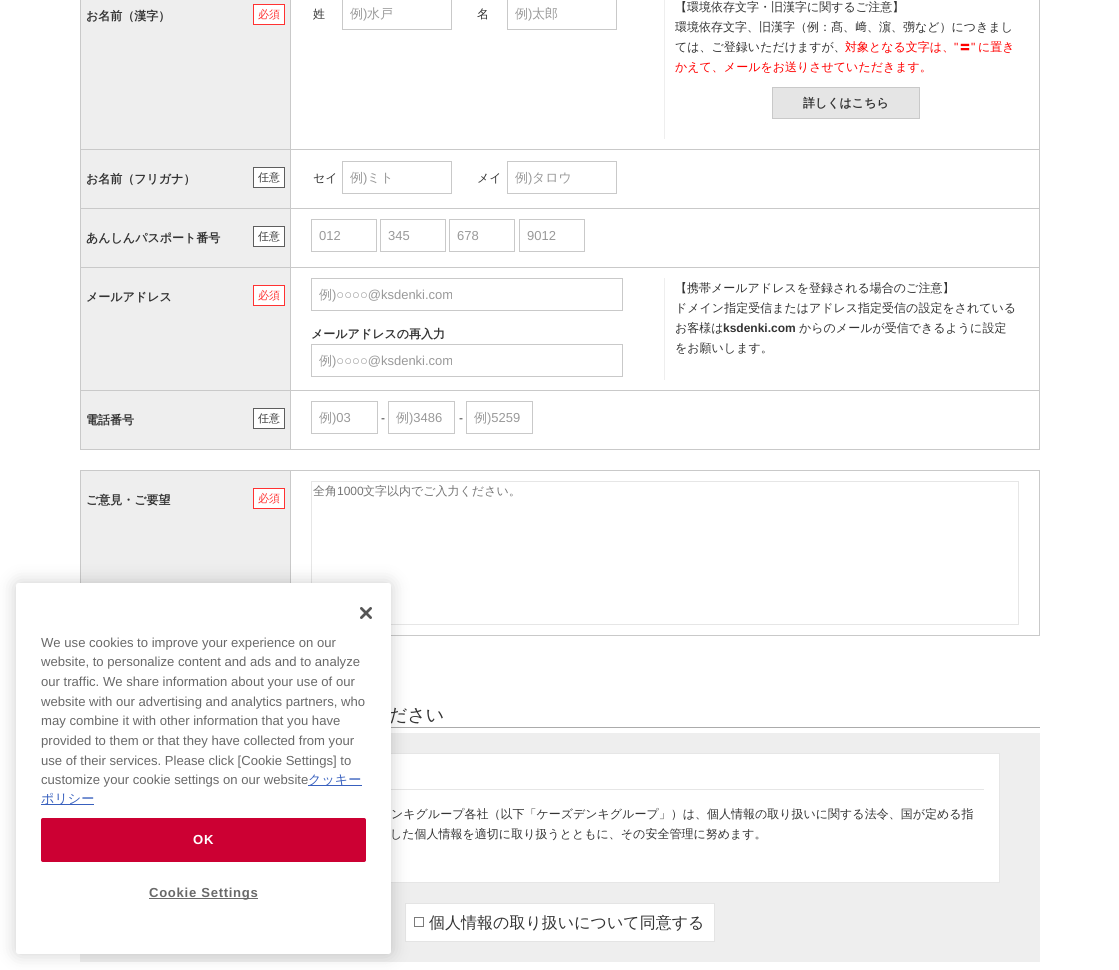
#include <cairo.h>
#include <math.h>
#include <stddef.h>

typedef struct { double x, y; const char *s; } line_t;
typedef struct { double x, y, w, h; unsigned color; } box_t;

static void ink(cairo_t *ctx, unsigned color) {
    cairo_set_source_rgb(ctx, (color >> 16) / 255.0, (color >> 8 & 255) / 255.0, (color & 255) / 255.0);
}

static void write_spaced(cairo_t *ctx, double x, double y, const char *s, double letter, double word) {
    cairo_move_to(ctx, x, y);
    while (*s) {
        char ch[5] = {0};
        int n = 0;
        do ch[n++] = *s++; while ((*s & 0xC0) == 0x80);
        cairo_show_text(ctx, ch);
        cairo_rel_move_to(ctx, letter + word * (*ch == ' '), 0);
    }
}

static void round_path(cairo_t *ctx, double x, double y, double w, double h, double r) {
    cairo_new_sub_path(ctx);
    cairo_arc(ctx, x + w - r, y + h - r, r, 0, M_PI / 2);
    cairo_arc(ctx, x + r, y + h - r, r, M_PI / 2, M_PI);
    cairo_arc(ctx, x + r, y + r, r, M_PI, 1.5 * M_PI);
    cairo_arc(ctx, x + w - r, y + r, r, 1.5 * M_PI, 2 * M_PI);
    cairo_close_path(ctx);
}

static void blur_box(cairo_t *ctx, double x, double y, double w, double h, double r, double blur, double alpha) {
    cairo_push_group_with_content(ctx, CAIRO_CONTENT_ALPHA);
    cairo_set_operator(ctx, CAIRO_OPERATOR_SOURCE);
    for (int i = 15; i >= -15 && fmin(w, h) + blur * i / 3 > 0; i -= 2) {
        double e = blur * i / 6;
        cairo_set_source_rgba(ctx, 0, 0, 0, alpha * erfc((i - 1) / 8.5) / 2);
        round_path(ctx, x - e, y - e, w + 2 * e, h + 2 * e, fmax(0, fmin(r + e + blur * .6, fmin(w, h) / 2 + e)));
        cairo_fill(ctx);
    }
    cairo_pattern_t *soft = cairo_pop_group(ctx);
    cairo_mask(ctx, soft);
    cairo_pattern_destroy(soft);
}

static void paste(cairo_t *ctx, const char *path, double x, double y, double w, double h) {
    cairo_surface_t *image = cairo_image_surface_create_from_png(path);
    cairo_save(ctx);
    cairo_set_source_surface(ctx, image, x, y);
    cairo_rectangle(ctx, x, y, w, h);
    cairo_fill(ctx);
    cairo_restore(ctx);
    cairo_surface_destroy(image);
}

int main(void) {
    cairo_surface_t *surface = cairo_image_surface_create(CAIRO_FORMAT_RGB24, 1119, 970);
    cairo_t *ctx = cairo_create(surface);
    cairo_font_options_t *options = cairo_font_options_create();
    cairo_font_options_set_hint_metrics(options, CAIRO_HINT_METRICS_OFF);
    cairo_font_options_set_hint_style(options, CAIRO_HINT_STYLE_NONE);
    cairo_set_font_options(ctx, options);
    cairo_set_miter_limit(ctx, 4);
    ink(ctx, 0xFFFFFF);
    cairo_paint(ctx);
    ink(ctx, 0xEEEEEE);
    cairo_rectangle(ctx, 81, 0, 209, 149);
    cairo_fill(ctx);
    cairo_select_font_face(ctx, "WenQuanYi Zen Hei", CAIRO_FONT_SLANT_NORMAL, CAIRO_FONT_WEIGHT_BOLD);
    cairo_set_font_size(ctx, 12);
    ink(ctx, 0x333333);
    cairo_move_to(ctx, 86, 20);
    cairo_show_text(ctx, "お名前（漢字）");
    ink(ctx, 0xFFFFFF);
    cairo_rectangle(ctx, 253.5, 4.5, 31, 20);
    cairo_fill_preserve(ctx);
    ink(ctx, 0xFF3232);
    cairo_set_line_width(ctx, 1);
    cairo_stroke(ctx);
    cairo_select_font_face(ctx, "WenQuanYi Zen Hei Medium", CAIRO_FONT_SLANT_NORMAL, CAIRO_FONT_WEIGHT_NORMAL);
    cairo_set_font_size(ctx, 11);
    cairo_move_to(ctx, 258, 18);
    cairo_show_text(ctx, "必須");
    {
        static const box_t items[] = {
            {290, 149, 750, 1, 0xC9C9C9},
            {290, 208, 750, 1, 0xC9C9C9},
            {290, 267, 750, 1, 0xC9C9C9},
            {290, 390, 750, 1, 0xC9C9C9},
            {1039, 390, 1, 60, 0xC9C9C9},
            {290, 449, 750, 1, 0xC9C9C9},
            {290, 390, 1, 60, 0xC9C9C9},
            {80, 390, 211, 1, 0xC9C9C9},
            {290, 267, 1, 124, 0xC9C9C9},
            {80, 267, 211, 1, 0xC9C9C9},
            {290, 208, 1, 60, 0xC9C9C9},
            {80, 208, 211, 1, 0xC9C9C9},
            {290, 149, 1, 60, 0xC9C9C9},
            {80, 149, 211, 1, 0xC9C9C9},
            {290, 0, 1, 150, 0xC9C9C9},
        };
        for (size_t i = 0; i < sizeof items / sizeof *items; i++) {
            ink(ctx, items[i].color);
            cairo_rectangle(ctx, items[i].x, items[i].y, items[i].w, items[i].h);
            cairo_fill(ctx);
        }
    }
    cairo_set_font_size(ctx, 12);
    ink(ctx, 0x333333);
    cairo_move_to(ctx, 313, 18);
    cairo_show_text(ctx, "姓");
    cairo_rectangle(ctx, 342.5, -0.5, 109, 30);
    ink(ctx, 0xC9C9C9);
    cairo_stroke(ctx);
    cairo_set_font_size(ctx, 13);
    ink(ctx, 0x999999);
    cairo_move_to(ctx, 350, 18);
    cairo_show_text(ctx, "例");
    cairo_select_font_face(ctx, "Liberation Sans", CAIRO_FONT_SLANT_NORMAL, CAIRO_FONT_WEIGHT_NORMAL);
    cairo_move_to(ctx, 363, 18);
    cairo_show_text(ctx, ")");
    cairo_select_font_face(ctx, "WenQuanYi Zen Hei Medium", CAIRO_FONT_SLANT_NORMAL, CAIRO_FONT_WEIGHT_NORMAL);
    cairo_move_to(ctx, 367, 18);
    cairo_show_text(ctx, "水戸");
    cairo_set_font_size(ctx, 12);
    ink(ctx, 0x333333);
    cairo_move_to(ctx, 477, 18);
    cairo_show_text(ctx, "名");
    cairo_rectangle(ctx, 507.5, -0.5, 109, 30);
    ink(ctx, 0xC9C9C9);
    cairo_stroke(ctx);
    cairo_set_font_size(ctx, 13);
    ink(ctx, 0x999999);
    cairo_move_to(ctx, 515, 18);
    cairo_show_text(ctx, "例");
    cairo_select_font_face(ctx, "Liberation Sans", CAIRO_FONT_SLANT_NORMAL, CAIRO_FONT_WEIGHT_NORMAL);
    cairo_move_to(ctx, 528, 18);
    cairo_show_text(ctx, ")");
    cairo_select_font_face(ctx, "WenQuanYi Zen Hei Medium", CAIRO_FONT_SLANT_NORMAL, CAIRO_FONT_WEIGHT_NORMAL);
    cairo_move_to(ctx, 532, 18);
    cairo_show_text(ctx, "太郎");
    ink(ctx, 0xEEEEEE);
    cairo_rectangle(ctx, 664, 0, 1, 139);
    cairo_fill(ctx);
    cairo_set_font_size(ctx, 12);
    ink(ctx, 0x333333);
    cairo_move_to(ctx, 675, 11);
    cairo_show_text(ctx, "【環境依存文字・旧漢字に関するご注意】");
    cairo_move_to(ctx, 675, 31);
    cairo_show_text(ctx, "環境依存文字、旧漢字（例：髙、");
    cairo_select_font_face(ctx, "IPAPGothic", CAIRO_FONT_SLANT_NORMAL, CAIRO_FONT_WEIGHT_NORMAL);
    cairo_move_to(ctx, 855, 31);
    cairo_show_text(ctx, "﨑");
    cairo_select_font_face(ctx, "WenQuanYi Zen Hei Medium", CAIRO_FONT_SLANT_NORMAL, CAIRO_FONT_WEIGHT_NORMAL);
    cairo_move_to(ctx, 867, 31);
    cairo_show_text(ctx, "、濵、彅など）につきまし");
    cairo_move_to(ctx, 675, 51);
    cairo_show_text(ctx, "ては、ご登録いただけますが、");
    ink(ctx, 0xFF0000);
    cairo_move_to(ctx, 845, 51);
    cairo_show_text(ctx, "対象となる文字は、");
    cairo_select_font_face(ctx, "Liberation Sans", CAIRO_FONT_SLANT_NORMAL, CAIRO_FONT_WEIGHT_NORMAL);
    cairo_move_to(ctx, 954, 51);
    cairo_show_text(ctx, "\"");
    cairo_select_font_face(ctx, "WenQuanYi Zen Hei Medium", CAIRO_FONT_SLANT_NORMAL, CAIRO_FONT_WEIGHT_NORMAL);
    cairo_move_to(ctx, 959, 51);
    cairo_show_text(ctx, "〓");
    cairo_select_font_face(ctx, "Liberation Sans", CAIRO_FONT_SLANT_NORMAL, CAIRO_FONT_WEIGHT_NORMAL);
    cairo_move_to(ctx, 971, 51);
    cairo_show_text(ctx, "\"");
    cairo_select_font_face(ctx, "WenQuanYi Zen Hei Medium", CAIRO_FONT_SLANT_NORMAL, CAIRO_FONT_WEIGHT_NORMAL);
    cairo_move_to(ctx, 978, 51);
    cairo_show_text(ctx, "に置き");
    cairo_move_to(ctx, 675, 71);
    cairo_show_text(ctx, "かえて、メールをお送りさせていただきます。");
    cairo_rectangle(ctx, 772.5, 87.5, 147, 31);
    ink(ctx, 0xC9C9C9);
    cairo_stroke(ctx);
    ink(ctx, 0xE5E5E5);
    cairo_rectangle(ctx, 773, 88, 146, 30);
    cairo_fill(ctx);
    cairo_select_font_face(ctx, "WenQuanYi Zen Hei", CAIRO_FONT_SLANT_NORMAL, CAIRO_FONT_WEIGHT_BOLD);
    ink(ctx, 0x333333);
    cairo_move_to(ctx, 803, 107);
    cairo_show_text(ctx, "詳しくはこちら");
    {
        static const box_t items[] = {
            {81, 150, 209, 58, 0xEEEEEE},
            {80, 449, 211, 1, 0xC9C9C9},
            {80, 390, 1, 60, 0xC9C9C9},
            {80, 267, 1, 124, 0xC9C9C9},
            {80, 208, 1, 60, 0xC9C9C9},
            {80, 0, 1, 209, 0xC9C9C9},
        };
        for (size_t i = 0; i < sizeof items / sizeof *items; i++) {
            ink(ctx, items[i].color);
            cairo_rectangle(ctx, items[i].x, items[i].y, items[i].w, items[i].h);
            cairo_fill(ctx);
        }
    }
    ink(ctx, 0x333333);
    cairo_move_to(ctx, 86, 183);
    cairo_show_text(ctx, "お名前（フリガナ）");
    ink(ctx, 0xFFFFFF);
    cairo_rectangle(ctx, 253.5, 167.5, 31, 20);
    cairo_fill_preserve(ctx);
    ink(ctx, 0x5E5E5E);
    cairo_stroke(ctx);
    cairo_select_font_face(ctx, "WenQuanYi Zen Hei Medium", CAIRO_FONT_SLANT_NORMAL, CAIRO_FONT_WEIGHT_NORMAL);
    cairo_set_font_size(ctx, 11);
    ink(ctx, 0x333333);
    cairo_move_to(ctx, 258, 181);
    cairo_show_text(ctx, "任意");
    {
        static const box_t items[] = {
            {1039, 267, 1, 124, 0xC9C9C9},
            {1039, 208, 1, 60, 0xC9C9C9},
            {1039, 0, 1, 209, 0xC9C9C9},
        };
        for (size_t i = 0; i < sizeof items / sizeof *items; i++) {
            ink(ctx, items[i].color);
            cairo_rectangle(ctx, items[i].x, items[i].y, items[i].w, items[i].h);
            cairo_fill(ctx);
        }
    }
    cairo_set_font_size(ctx, 12);
    ink(ctx, 0x333333);
    cairo_move_to(ctx, 313, 182);
    cairo_show_text(ctx, "セイ");
    cairo_rectangle(ctx, 342.5, 161.5, 109, 32);
    ink(ctx, 0xC9C9C9);
    cairo_stroke(ctx);
    cairo_set_font_size(ctx, 13);
    ink(ctx, 0x999999);
    cairo_move_to(ctx, 350, 182);
    cairo_show_text(ctx, "例");
    cairo_select_font_face(ctx, "Liberation Sans", CAIRO_FONT_SLANT_NORMAL, CAIRO_FONT_WEIGHT_NORMAL);
    cairo_move_to(ctx, 363, 182);
    cairo_show_text(ctx, ")");
    cairo_select_font_face(ctx, "WenQuanYi Zen Hei Medium", CAIRO_FONT_SLANT_NORMAL, CAIRO_FONT_WEIGHT_NORMAL);
    cairo_move_to(ctx, 367, 182);
    cairo_show_text(ctx, "ミト");
    cairo_set_font_size(ctx, 12);
    ink(ctx, 0x333333);
    cairo_move_to(ctx, 477, 182);
    cairo_show_text(ctx, "メイ");
    cairo_rectangle(ctx, 507.5, 161.5, 109, 32);
    ink(ctx, 0xC9C9C9);
    cairo_stroke(ctx);
    cairo_set_font_size(ctx, 13);
    ink(ctx, 0x999999);
    cairo_move_to(ctx, 515, 182);
    cairo_show_text(ctx, "例");
    cairo_select_font_face(ctx, "Liberation Sans", CAIRO_FONT_SLANT_NORMAL, CAIRO_FONT_WEIGHT_NORMAL);
    cairo_move_to(ctx, 528, 182);
    cairo_show_text(ctx, ")");
    cairo_select_font_face(ctx, "WenQuanYi Zen Hei Medium", CAIRO_FONT_SLANT_NORMAL, CAIRO_FONT_WEIGHT_NORMAL);
    cairo_move_to(ctx, 532, 182);
    cairo_show_text(ctx, "タロウ");
    ink(ctx, 0xEEEEEE);
    cairo_rectangle(ctx, 81, 209, 209, 58);
    cairo_fill(ctx);
    cairo_select_font_face(ctx, "WenQuanYi Zen Hei", CAIRO_FONT_SLANT_NORMAL, CAIRO_FONT_WEIGHT_BOLD);
    cairo_set_font_size(ctx, 12);
    ink(ctx, 0x333333);
    cairo_move_to(ctx, 86, 242);
    cairo_show_text(ctx, "あんしんパスポート番号");
    ink(ctx, 0xFFFFFF);
    cairo_rectangle(ctx, 253.5, 226.5, 31, 20);
    cairo_fill_preserve(ctx);
    ink(ctx, 0x5E5E5E);
    cairo_stroke(ctx);
    cairo_select_font_face(ctx, "WenQuanYi Zen Hei Medium", CAIRO_FONT_SLANT_NORMAL, CAIRO_FONT_WEIGHT_NORMAL);
    cairo_set_font_size(ctx, 11);
    ink(ctx, 0x333333);
    cairo_move_to(ctx, 258, 240);
    cairo_show_text(ctx, "任意");
    cairo_rectangle(ctx, 311.5, 219.5, 65, 32);
    ink(ctx, 0xC9C9C9);
    cairo_stroke(ctx);
    cairo_select_font_face(ctx, "Liberation Sans", CAIRO_FONT_SLANT_NORMAL, CAIRO_FONT_WEIGHT_NORMAL);
    cairo_set_font_size(ctx, 13);
    ink(ctx, 0x999999);
    cairo_move_to(ctx, 319, 240);
    cairo_show_text(ctx, "012");
    cairo_rectangle(ctx, 380.5, 219.5, 65, 32);
    ink(ctx, 0xC9C9C9);
    cairo_stroke(ctx);
    ink(ctx, 0x999999);
    cairo_move_to(ctx, 388, 240);
    cairo_show_text(ctx, "345");
    cairo_rectangle(ctx, 449.5, 219.5, 65, 32);
    ink(ctx, 0xC9C9C9);
    cairo_stroke(ctx);
    ink(ctx, 0x999999);
    cairo_move_to(ctx, 457, 240);
    cairo_show_text(ctx, "678");
    cairo_rectangle(ctx, 519.5, 219.5, 65, 32);
    ink(ctx, 0xC9C9C9);
    cairo_stroke(ctx);
    ink(ctx, 0x999999);
    cairo_move_to(ctx, 527, 240);
    cairo_show_text(ctx, "9012");
    ink(ctx, 0xEEEEEE);
    cairo_rectangle(ctx, 81, 268, 209, 122);
    cairo_fill(ctx);
    cairo_select_font_face(ctx, "WenQuanYi Zen Hei", CAIRO_FONT_SLANT_NORMAL, CAIRO_FONT_WEIGHT_BOLD);
    cairo_set_font_size(ctx, 12);
    ink(ctx, 0x333333);
    cairo_move_to(ctx, 86, 301);
    cairo_show_text(ctx, "メールアドレス");
    ink(ctx, 0xFFFFFF);
    cairo_rectangle(ctx, 253.5, 285.5, 31, 20);
    cairo_fill_preserve(ctx);
    ink(ctx, 0xFF3232);
    cairo_stroke(ctx);
    cairo_select_font_face(ctx, "WenQuanYi Zen Hei Medium", CAIRO_FONT_SLANT_NORMAL, CAIRO_FONT_WEIGHT_NORMAL);
    cairo_set_font_size(ctx, 11);
    cairo_move_to(ctx, 258, 299);
    cairo_show_text(ctx, "必須");
    ink(ctx, 0xEEEEEE);
    cairo_rectangle(ctx, 664, 278, 1, 102);
    cairo_fill(ctx);
    cairo_rectangle(ctx, 311.5, 278.5, 311, 32);
    ink(ctx, 0xC9C9C9);
    cairo_stroke(ctx);
    cairo_set_font_size(ctx, 13);
    ink(ctx, 0x999999);
    cairo_move_to(ctx, 319, 299);
    cairo_show_text(ctx, "例");
    cairo_select_font_face(ctx, "Liberation Sans", CAIRO_FONT_SLANT_NORMAL, CAIRO_FONT_WEIGHT_NORMAL);
    cairo_move_to(ctx, 332, 299);
    cairo_show_text(ctx, ")○○○○@ksdenki.com");
    cairo_select_font_face(ctx, "WenQuanYi Zen Hei", CAIRO_FONT_SLANT_NORMAL, CAIRO_FONT_WEIGHT_BOLD);
    cairo_set_font_size(ctx, 12);
    ink(ctx, 0x333333);
    cairo_move_to(ctx, 311, 338);
    cairo_show_text(ctx, "メールアドレスの再入力");
    cairo_rectangle(ctx, 311.5, 344.5, 311, 32);
    ink(ctx, 0xC9C9C9);
    cairo_stroke(ctx);
    cairo_select_font_face(ctx, "WenQuanYi Zen Hei Medium", CAIRO_FONT_SLANT_NORMAL, CAIRO_FONT_WEIGHT_NORMAL);
    cairo_set_font_size(ctx, 13);
    ink(ctx, 0x999999);
    cairo_move_to(ctx, 319, 365);
    cairo_show_text(ctx, "例");
    cairo_select_font_face(ctx, "Liberation Sans", CAIRO_FONT_SLANT_NORMAL, CAIRO_FONT_WEIGHT_NORMAL);
    cairo_move_to(ctx, 332, 365);
    cairo_show_text(ctx, ")○○○○@ksdenki.com");
    cairo_select_font_face(ctx, "WenQuanYi Zen Hei Medium", CAIRO_FONT_SLANT_NORMAL, CAIRO_FONT_WEIGHT_NORMAL);
    cairo_set_font_size(ctx, 12);
    ink(ctx, 0x333333);
    {
        static const line_t items[] = {
            {675, 292, "【携帯メールアドレスを登録される場合のご注意】"},
            {675, 312, "ドメイン指定受信またはアドレス指定受信の設定をされている"},
            {675, 332, "お客様は"},
        };
        for (size_t i = 0; i < sizeof items / sizeof *items; i++) {
            cairo_move_to(ctx, items[i].x, items[i].y);
            cairo_show_text(ctx, items[i].s);
        }
    }
    cairo_select_font_face(ctx, "Liberation Sans", CAIRO_FONT_SLANT_NORMAL, CAIRO_FONT_WEIGHT_BOLD);
    cairo_move_to(ctx, 723, 332);
    cairo_show_text(ctx, "ksdenki.com");
    cairo_select_font_face(ctx, "WenQuanYi Zen Hei Medium", CAIRO_FONT_SLANT_NORMAL, CAIRO_FONT_WEIGHT_NORMAL);
    cairo_move_to(ctx, 799, 332);
    cairo_show_text(ctx, "からのメールが受信できるように設定");
    cairo_move_to(ctx, 675, 352);
    cairo_show_text(ctx, "をお願いします。");
    ink(ctx, 0xEEEEEE);
    cairo_rectangle(ctx, 81, 391, 209, 58);
    cairo_fill(ctx);
    cairo_select_font_face(ctx, "WenQuanYi Zen Hei", CAIRO_FONT_SLANT_NORMAL, CAIRO_FONT_WEIGHT_BOLD);
    ink(ctx, 0x333333);
    cairo_move_to(ctx, 86, 424);
    cairo_show_text(ctx, "電話番号");
    ink(ctx, 0xFFFFFF);
    cairo_rectangle(ctx, 253.5, 408.5, 31, 20);
    cairo_fill_preserve(ctx);
    ink(ctx, 0x5E5E5E);
    cairo_stroke(ctx);
    cairo_select_font_face(ctx, "WenQuanYi Zen Hei Medium", CAIRO_FONT_SLANT_NORMAL, CAIRO_FONT_WEIGHT_NORMAL);
    cairo_set_font_size(ctx, 11);
    ink(ctx, 0x333333);
    cairo_move_to(ctx, 258, 422);
    cairo_show_text(ctx, "任意");
    cairo_rectangle(ctx, 311.5, 401.5, 66, 32);
    ink(ctx, 0xC9C9C9);
    cairo_stroke(ctx);
    cairo_set_font_size(ctx, 13);
    ink(ctx, 0x999999);
    cairo_move_to(ctx, 319, 422);
    cairo_show_text(ctx, "例");
    cairo_select_font_face(ctx, "Liberation Sans", CAIRO_FONT_SLANT_NORMAL, CAIRO_FONT_WEIGHT_NORMAL);
    cairo_move_to(ctx, 332, 422);
    cairo_show_text(ctx, ")03");
    cairo_set_font_size(ctx, 12);
    ink(ctx, 0x333333);
    cairo_move_to(ctx, 381, 422);
    cairo_show_text(ctx, "-");
    cairo_rectangle(ctx, 388.5, 401.5, 66, 32);
    ink(ctx, 0xC9C9C9);
    cairo_stroke(ctx);
    cairo_select_font_face(ctx, "WenQuanYi Zen Hei Medium", CAIRO_FONT_SLANT_NORMAL, CAIRO_FONT_WEIGHT_NORMAL);
    cairo_set_font_size(ctx, 13);
    ink(ctx, 0x999999);
    cairo_move_to(ctx, 396, 422);
    cairo_show_text(ctx, "例");
    cairo_select_font_face(ctx, "Liberation Sans", CAIRO_FONT_SLANT_NORMAL, CAIRO_FONT_WEIGHT_NORMAL);
    cairo_move_to(ctx, 409, 422);
    cairo_show_text(ctx, ")3486");
    cairo_set_font_size(ctx, 12);
    ink(ctx, 0x333333);
    cairo_move_to(ctx, 459, 422);
    cairo_show_text(ctx, "-");
    cairo_rectangle(ctx, 466.5, 401.5, 66, 32);
    ink(ctx, 0xC9C9C9);
    cairo_stroke(ctx);
    cairo_select_font_face(ctx, "WenQuanYi Zen Hei Medium", CAIRO_FONT_SLANT_NORMAL, CAIRO_FONT_WEIGHT_NORMAL);
    cairo_set_font_size(ctx, 13);
    ink(ctx, 0x999999);
    cairo_move_to(ctx, 474, 422);
    cairo_show_text(ctx, "例");
    cairo_select_font_face(ctx, "Liberation Sans", CAIRO_FONT_SLANT_NORMAL, CAIRO_FONT_WEIGHT_NORMAL);
    cairo_move_to(ctx, 487, 422);
    cairo_show_text(ctx, ")5259");
    {
        static const box_t items[] = {
            {290, 470, 750, 1, 0xC9C9C9},
            {1039, 470, 1, 166, 0xC9C9C9},
            {391, 635, 649, 1, 0xC9C9C9},
            {290, 470, 1, 113, 0xC9C9C9},
        };
        for (size_t i = 0; i < sizeof items / sizeof *items; i++) {
            ink(ctx, items[i].color);
            cairo_rectangle(ctx, items[i].x, items[i].y, items[i].w, items[i].h);
            cairo_fill(ctx);
        }
    }
    cairo_rectangle(ctx, 311.5, 481.5, 707, 143);
    ink(ctx, 0xE6E6E6);
    cairo_stroke(ctx);
    cairo_select_font_face(ctx, "WenQuanYi Zen Hei Medium", CAIRO_FONT_SLANT_NORMAL, CAIRO_FONT_WEIGHT_NORMAL);
    cairo_set_font_size(ctx, 12);
    ink(ctx, 0x757575);
    cairo_move_to(ctx, 313, 495);
    cairo_show_text(ctx, "全角");
    cairo_select_font_face(ctx, "Liberation Sans", CAIRO_FONT_SLANT_NORMAL, CAIRO_FONT_WEIGHT_NORMAL);
    cairo_move_to(ctx, 337, 495);
    cairo_show_text(ctx, "1000");
    cairo_select_font_face(ctx, "WenQuanYi Zen Hei Medium", CAIRO_FONT_SLANT_NORMAL, CAIRO_FONT_WEIGHT_NORMAL);
    cairo_move_to(ctx, 363, 495);
    cairo_show_text(ctx, "文字以内でご入力ください。");
    {
        static const box_t items[] = {
            {81, 471, 209, 112, 0xEEEEEE},
            {80, 470, 211, 1, 0xC9C9C9},
            {80, 470, 1, 113, 0xC9C9C9},
        };
        for (size_t i = 0; i < sizeof items / sizeof *items; i++) {
            ink(ctx, items[i].color);
            cairo_rectangle(ctx, items[i].x, items[i].y, items[i].w, items[i].h);
            cairo_fill(ctx);
        }
    }
    cairo_select_font_face(ctx, "WenQuanYi Zen Hei", CAIRO_FONT_SLANT_NORMAL, CAIRO_FONT_WEIGHT_BOLD);
    ink(ctx, 0x333333);
    cairo_move_to(ctx, 86, 504);
    cairo_show_text(ctx, "ご意見・ご要望");
    ink(ctx, 0xFFFFFF);
    cairo_rectangle(ctx, 253.5, 488.5, 31, 20);
    cairo_fill_preserve(ctx);
    ink(ctx, 0xFF3232);
    cairo_stroke(ctx);
    cairo_select_font_face(ctx, "WenQuanYi Zen Hei Medium", CAIRO_FONT_SLANT_NORMAL, CAIRO_FONT_WEIGHT_NORMAL);
    cairo_set_font_size(ctx, 11);
    cairo_move_to(ctx, 258, 502);
    cairo_show_text(ctx, "必須");
    ink(ctx, 0xABABAB);
    cairo_rectangle(ctx, 391, 727, 649, 1);
    cairo_fill(ctx);
    cairo_set_font_size(ctx, 18);
    ink(ctx, 0x333333);
    cairo_move_to(ctx, 389, 721);
    cairo_show_text(ctx, "ださい");
    ink(ctx, 0xEEEEEE);
    cairo_rectangle(ctx, 80, 733, 960, 229);
    cairo_fill(ctx);
    ink(ctx, 0xFFFFFF);
    cairo_rectangle(ctx, 391, 754, 608, 128);
    cairo_fill(ctx);
    cairo_rectangle(ctx, 120.5, 753.5, 879, 129);
    ink(ctx, 0xE6E6E6);
    cairo_stroke(ctx);
    cairo_rectangle(ctx, 391, 789, 593, 1);
    cairo_fill(ctx);
    cairo_set_font_size(ctx, 12);
    ink(ctx, 0x333333);
    cairo_move_to(ctx, 391, 818);
    cairo_show_text(ctx, "ンキグループ各社（以下「ケーズデンキグループ」）は、個人情報の取り扱いに関する法令、国が定める指");
    cairo_move_to(ctx, 390, 838);
    cairo_show_text(ctx, "した個人情報を適切に取り扱うとともに、その安全管理に努めます。");
    ink(ctx, 0xFFFFFF);
    cairo_rectangle(ctx, 405.5, 903.5, 309, 38);
    cairo_fill_preserve(ctx);
    ink(ctx, 0xE4E4E4);
    cairo_stroke(ctx);
    cairo_rectangle(ctx, 414.5, 917.5, 9, 9);
    ink(ctx, 0x7B7B7B);
    cairo_stroke(ctx);
    cairo_set_font_size(ctx, 16);
    ink(ctx, 0x333333);
    cairo_move_to(ctx, 429, 928);
    cairo_show_text(ctx, "個人情報の取り扱いについて同意する");
    ink(ctx, 0x000000);
    blur_box(ctx, 16, 583, 375, 371, 2.5, 9, 0.2);
    ink(ctx, 0xFFFFFF);
    round_path(ctx, 16, 583, 375, 371, 2.5);
    cairo_fill(ctx);
    paste(ctx, "media/1.png", 360, 607, 12, 12);
    cairo_select_font_face(ctx, "Liberation Sans", CAIRO_FONT_SLANT_NORMAL, CAIRO_FONT_WEIGHT_NORMAL);
    cairo_set_font_size(ctx, 13.1);
    ink(ctx, 0x696969);
    {
        static const line_t items[] = {
            {41, 647, "We use cookies to improve your experience on our"},
            {41, 666, "website, to personalize content and ads and to analyze"},
            {41, 686, "our traffic. We share information about your use of our"},
            {41, 706, "website with our advertising and analytics partners, who"},
            {41, 725, "may combine it with other information that you have"},
            {41, 745, "provided to them or that they have collected from your"},
            {41, 765, "use of their services. Please click [Cookie Settings] to"},
            {41, 784, "customize your cookie settings on our website"},
        };
        for (size_t i = 0; i < sizeof items / sizeof *items; i++) {
            cairo_move_to(ctx, items[i].x, items[i].y);
            cairo_show_text(ctx, items[i].s);
        }
    }
    ink(ctx, 0x3860BE);
    cairo_rectangle(ctx, 308, 785, 54, 1);
    cairo_fill(ctx);
    cairo_select_font_face(ctx, "WenQuanYi Zen Hei Medium", CAIRO_FONT_SLANT_NORMAL, CAIRO_FONT_WEIGHT_NORMAL);
    cairo_move_to(ctx, 308, 784);
    cairo_show_text(ctx, "クッキー");
    cairo_rectangle(ctx, 41, 804, 53, 1);
    cairo_fill(ctx);
    cairo_move_to(ctx, 41, 803);
    cairo_show_text(ctx, "ポリシー");
    ink(ctx, 0xCC0033);
    round_path(ctx, 41.5, 818.5, 324, 43, 1.5);
    cairo_fill_preserve(ctx);
    cairo_stroke(ctx);
    cairo_select_font_face(ctx, "Liberation Sans", CAIRO_FONT_SLANT_NORMAL, CAIRO_FONT_WEIGHT_BOLD);
    ink(ctx, 0xFFFFFF);
    write_spaced(ctx, 193, 844, "OK", 0.7, 0);
    ink(ctx, 0x696969);
    cairo_rectangle(ctx, 149, 898, 109, 1);
    cairo_fill(ctx);
    write_spaced(ctx, 149, 897, "Cookie Settings", 0.7, 0);
    cairo_surface_write_to_png(surface, "image.png");
    cairo_font_options_destroy(options);
    cairo_destroy(ctx);
    cairo_surface_destroy(surface);
    return 0;
}
